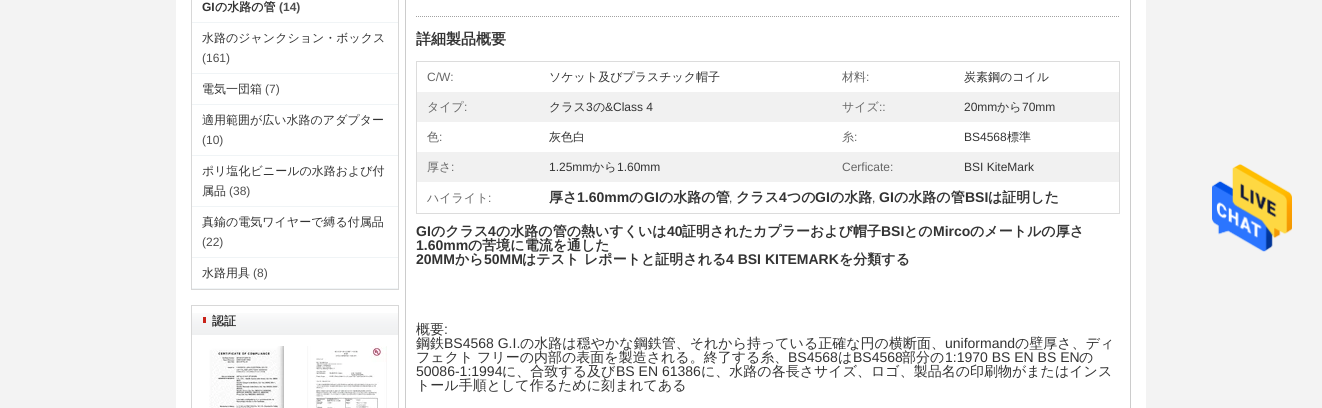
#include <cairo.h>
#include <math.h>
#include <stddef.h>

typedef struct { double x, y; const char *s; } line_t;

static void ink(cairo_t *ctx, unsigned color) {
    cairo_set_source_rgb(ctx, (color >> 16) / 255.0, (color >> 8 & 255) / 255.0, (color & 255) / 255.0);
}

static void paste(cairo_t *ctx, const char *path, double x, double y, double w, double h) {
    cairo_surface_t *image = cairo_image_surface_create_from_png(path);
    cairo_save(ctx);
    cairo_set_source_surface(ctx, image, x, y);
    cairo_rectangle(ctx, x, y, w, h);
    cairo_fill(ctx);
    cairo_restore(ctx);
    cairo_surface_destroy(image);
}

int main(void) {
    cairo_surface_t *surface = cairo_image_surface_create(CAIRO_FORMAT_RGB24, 1322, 408);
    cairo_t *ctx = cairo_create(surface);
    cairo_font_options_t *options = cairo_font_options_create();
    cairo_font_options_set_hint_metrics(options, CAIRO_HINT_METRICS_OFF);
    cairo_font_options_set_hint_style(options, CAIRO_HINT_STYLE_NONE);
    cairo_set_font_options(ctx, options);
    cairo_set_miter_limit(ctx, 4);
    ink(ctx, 0xF3F3F3);
    cairo_paint(ctx);
    ink(ctx, 0xFFFFFF);
    cairo_rectangle(ctx, 176, 0, 970, 408);
    cairo_fill(ctx);
    cairo_rectangle(ctx, 191.5, -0.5, 207, 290);
    ink(ctx, 0xD8D8D8);
    cairo_set_line_width(ctx, 1);
    cairo_stroke(ctx);
    ink(ctx, 0xF0F4F6);
    cairo_rectangle(ctx, 192, 22, 206, 1);
    cairo_fill(ctx);
    cairo_select_font_face(ctx, "Liberation Sans", CAIRO_FONT_SLANT_NORMAL, CAIRO_FONT_WEIGHT_BOLD);
    cairo_set_font_size(ctx, 12);
    ink(ctx, 0x333333);
    cairo_move_to(ctx, 202, 11);
    cairo_show_text(ctx, "GI");
    cairo_select_font_face(ctx, "WenQuanYi Zen Hei", CAIRO_FONT_SLANT_NORMAL, CAIRO_FONT_WEIGHT_BOLD);
    cairo_move_to(ctx, 215, 11);
    cairo_show_text(ctx, "の水路の管");
    cairo_select_font_face(ctx, "Liberation Sans", CAIRO_FONT_SLANT_NORMAL, CAIRO_FONT_WEIGHT_BOLD);
    ink(ctx, 0x4E4E4E);
    cairo_move_to(ctx, 279, 11);
    cairo_show_text(ctx, "(14)");
    ink(ctx, 0xF0F4F6);
    cairo_rectangle(ctx, 192, 73, 206, 1);
    cairo_fill(ctx);
    cairo_select_font_face(ctx, "WenQuanYi Zen Hei Medium", CAIRO_FONT_SLANT_NORMAL, CAIRO_FONT_WEIGHT_NORMAL);
    ink(ctx, 0x333333);
    cairo_move_to(ctx, 202, 42);
    cairo_show_text(ctx, "水路のジャンクション・ボックス");
    cairo_select_font_face(ctx, "Liberation Sans", CAIRO_FONT_SLANT_NORMAL, CAIRO_FONT_WEIGHT_NORMAL);
    ink(ctx, 0x4E4E4E);
    cairo_move_to(ctx, 202, 62);
    cairo_show_text(ctx, "(161)");
    ink(ctx, 0xF0F4F6);
    cairo_rectangle(ctx, 192, 104, 206, 1);
    cairo_fill(ctx);
    cairo_select_font_face(ctx, "WenQuanYi Zen Hei Medium", CAIRO_FONT_SLANT_NORMAL, CAIRO_FONT_WEIGHT_NORMAL);
    ink(ctx, 0x333333);
    cairo_move_to(ctx, 202, 93);
    cairo_show_text(ctx, "電気一団箱");
    cairo_select_font_face(ctx, "Liberation Sans", CAIRO_FONT_SLANT_NORMAL, CAIRO_FONT_WEIGHT_NORMAL);
    ink(ctx, 0x4E4E4E);
    cairo_move_to(ctx, 265, 93);
    cairo_show_text(ctx, "(7)");
    ink(ctx, 0xF0F4F6);
    cairo_rectangle(ctx, 192, 155, 206, 1);
    cairo_fill(ctx);
    cairo_select_font_face(ctx, "WenQuanYi Zen Hei Medium", CAIRO_FONT_SLANT_NORMAL, CAIRO_FONT_WEIGHT_NORMAL);
    ink(ctx, 0x333333);
    cairo_move_to(ctx, 202, 124);
    cairo_show_text(ctx, "適用範囲が広い水路のアダプター");
    cairo_select_font_face(ctx, "Liberation Sans", CAIRO_FONT_SLANT_NORMAL, CAIRO_FONT_WEIGHT_NORMAL);
    ink(ctx, 0x4E4E4E);
    cairo_move_to(ctx, 202, 144);
    cairo_show_text(ctx, "(10)");
    ink(ctx, 0xF0F4F6);
    cairo_rectangle(ctx, 192, 206, 206, 1);
    cairo_fill(ctx);
    cairo_select_font_face(ctx, "WenQuanYi Zen Hei Medium", CAIRO_FONT_SLANT_NORMAL, CAIRO_FONT_WEIGHT_NORMAL);
    ink(ctx, 0x333333);
    cairo_move_to(ctx, 202, 175);
    cairo_show_text(ctx, "ポリ塩化ビニールの水路および付");
    cairo_move_to(ctx, 202, 195);
    cairo_show_text(ctx, "属品");
    cairo_select_font_face(ctx, "Liberation Sans", CAIRO_FONT_SLANT_NORMAL, CAIRO_FONT_WEIGHT_NORMAL);
    ink(ctx, 0x4E4E4E);
    cairo_move_to(ctx, 229, 195);
    cairo_show_text(ctx, "(38)");
    ink(ctx, 0xF0F4F6);
    cairo_rectangle(ctx, 192, 257, 206, 1);
    cairo_fill(ctx);
    cairo_select_font_face(ctx, "WenQuanYi Zen Hei Medium", CAIRO_FONT_SLANT_NORMAL, CAIRO_FONT_WEIGHT_NORMAL);
    ink(ctx, 0x333333);
    cairo_move_to(ctx, 202, 226);
    cairo_show_text(ctx, "真鍮の電気ワイヤーで縛る付属品");
    cairo_select_font_face(ctx, "Liberation Sans", CAIRO_FONT_SLANT_NORMAL, CAIRO_FONT_WEIGHT_NORMAL);
    ink(ctx, 0x4E4E4E);
    cairo_move_to(ctx, 202, 246);
    cairo_show_text(ctx, "(22)");
    ink(ctx, 0xF0F4F6);
    cairo_rectangle(ctx, 192, 288, 206, 1);
    cairo_fill(ctx);
    cairo_select_font_face(ctx, "WenQuanYi Zen Hei Medium", CAIRO_FONT_SLANT_NORMAL, CAIRO_FONT_WEIGHT_NORMAL);
    ink(ctx, 0x333333);
    cairo_move_to(ctx, 202, 277);
    cairo_show_text(ctx, "水路用具");
    cairo_select_font_face(ctx, "Liberation Sans", CAIRO_FONT_SLANT_NORMAL, CAIRO_FONT_WEIGHT_NORMAL);
    ink(ctx, 0x4E4E4E);
    cairo_move_to(ctx, 253, 277);
    cairo_show_text(ctx, "(8)");
    cairo_rectangle(ctx, 191.5, 305.5, 207, 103);
    ink(ctx, 0xD8D8D8);
    cairo_stroke(ctx);
    paste(ctx, "media/1.png", 192, 313, 206, 22);
    ink(ctx, 0xC92319);
    cairo_rectangle(ctx, 203, 317, 3, 6);
    cairo_fill(ctx);
    cairo_select_font_face(ctx, "WenQuanYi Zen Hei", CAIRO_FONT_SLANT_NORMAL, CAIRO_FONT_WEIGHT_BOLD);
    ink(ctx, 0x333333);
    cairo_move_to(ctx, 212, 325);
    cairo_show_text(ctx, "認証");
    paste(ctx, "media/2.png", 209, 346, 75, 62);
    paste(ctx, "media/3.png", 307, 346, 80, 62);
    ink(ctx, 0xCCCCCC);
    cairo_rectangle(ctx, 1130, 0, 1, 408);
    cairo_fill(ctx);
    cairo_rectangle(ctx, 405, 0, 1, 408);
    cairo_fill(ctx);
    cairo_new_path(ctx);
    cairo_move_to(ctx, 416, 16.5);
    cairo_line_to(ctx, 1120, 16.5);
    ink(ctx, 0xA2A2A2);
    cairo_set_dash(ctx, (double[]){1, 1}, 2, 0);
    cairo_stroke(ctx);
    cairo_set_font_size(ctx, 15);
    ink(ctx, 0x333333);
    cairo_move_to(ctx, 416, 44);
    cairo_show_text(ctx, "詳細製品概要");
    cairo_rectangle(ctx, 416.5, 61.5, 703, 152);
    ink(ctx, 0xDCDCDC);
    cairo_set_dash(ctx, NULL, 0, 0);
    cairo_stroke(ctx);
    cairo_select_font_face(ctx, "Liberation Sans", CAIRO_FONT_SLANT_NORMAL, CAIRO_FONT_WEIGHT_NORMAL);
    cairo_set_font_size(ctx, 12);
    ink(ctx, 0x666666);
    cairo_move_to(ctx, 427, 81);
    cairo_show_text(ctx, "C/W:");
    cairo_select_font_face(ctx, "WenQuanYi Zen Hei Medium", CAIRO_FONT_SLANT_NORMAL, CAIRO_FONT_WEIGHT_NORMAL);
    ink(ctx, 0x333333);
    cairo_move_to(ctx, 549, 81);
    cairo_show_text(ctx, "ソケット及びプラスチック帽子");
    ink(ctx, 0x666666);
    cairo_move_to(ctx, 842, 81);
    cairo_show_text(ctx, "材料");
    cairo_select_font_face(ctx, "Liberation Sans", CAIRO_FONT_SLANT_NORMAL, CAIRO_FONT_WEIGHT_NORMAL);
    cairo_move_to(ctx, 866, 81);
    cairo_show_text(ctx, ":");
    cairo_select_font_face(ctx, "WenQuanYi Zen Hei Medium", CAIRO_FONT_SLANT_NORMAL, CAIRO_FONT_WEIGHT_NORMAL);
    ink(ctx, 0x333333);
    cairo_move_to(ctx, 964, 81);
    cairo_show_text(ctx, "炭素鋼のコイル");
    ink(ctx, 0xF1F1F1);
    cairo_rectangle(ctx, 417, 92, 702, 30);
    cairo_fill(ctx);
    ink(ctx, 0x666666);
    cairo_move_to(ctx, 427, 111);
    cairo_show_text(ctx, "タイプ");
    cairo_select_font_face(ctx, "Liberation Sans", CAIRO_FONT_SLANT_NORMAL, CAIRO_FONT_WEIGHT_NORMAL);
    cairo_move_to(ctx, 464, 111);
    cairo_show_text(ctx, ":");
    cairo_select_font_face(ctx, "WenQuanYi Zen Hei Medium", CAIRO_FONT_SLANT_NORMAL, CAIRO_FONT_WEIGHT_NORMAL);
    ink(ctx, 0x333333);
    cairo_move_to(ctx, 549, 111);
    cairo_show_text(ctx, "クラス");
    cairo_select_font_face(ctx, "Liberation Sans", CAIRO_FONT_SLANT_NORMAL, CAIRO_FONT_WEIGHT_NORMAL);
    cairo_move_to(ctx, 586, 111);
    cairo_show_text(ctx, "3");
    cairo_select_font_face(ctx, "WenQuanYi Zen Hei Medium", CAIRO_FONT_SLANT_NORMAL, CAIRO_FONT_WEIGHT_NORMAL);
    cairo_move_to(ctx, 593, 111);
    cairo_show_text(ctx, "の");
    cairo_select_font_face(ctx, "Liberation Sans", CAIRO_FONT_SLANT_NORMAL, CAIRO_FONT_WEIGHT_NORMAL);
    cairo_move_to(ctx, 605, 111);
    cairo_show_text(ctx, "&Class 4");
    cairo_select_font_face(ctx, "WenQuanYi Zen Hei Medium", CAIRO_FONT_SLANT_NORMAL, CAIRO_FONT_WEIGHT_NORMAL);
    ink(ctx, 0x666666);
    cairo_move_to(ctx, 842, 111);
    cairo_show_text(ctx, "サイズ");
    cairo_select_font_face(ctx, "Liberation Sans", CAIRO_FONT_SLANT_NORMAL, CAIRO_FONT_WEIGHT_NORMAL);
    cairo_move_to(ctx, 879, 111);
    cairo_show_text(ctx, "::");
    ink(ctx, 0x333333);
    cairo_move_to(ctx, 964, 111);
    cairo_show_text(ctx, "20mm");
    cairo_select_font_face(ctx, "WenQuanYi Zen Hei Medium", CAIRO_FONT_SLANT_NORMAL, CAIRO_FONT_WEIGHT_NORMAL);
    cairo_move_to(ctx, 997, 111);
    cairo_show_text(ctx, "から");
    cairo_select_font_face(ctx, "Liberation Sans", CAIRO_FONT_SLANT_NORMAL, CAIRO_FONT_WEIGHT_NORMAL);
    cairo_move_to(ctx, 1022, 111);
    cairo_show_text(ctx, "70mm");
    cairo_select_font_face(ctx, "WenQuanYi Zen Hei Medium", CAIRO_FONT_SLANT_NORMAL, CAIRO_FONT_WEIGHT_NORMAL);
    ink(ctx, 0x666666);
    cairo_move_to(ctx, 427, 141);
    cairo_show_text(ctx, "色");
    cairo_select_font_face(ctx, "Liberation Sans", CAIRO_FONT_SLANT_NORMAL, CAIRO_FONT_WEIGHT_NORMAL);
    cairo_move_to(ctx, 439, 141);
    cairo_show_text(ctx, ":");
    cairo_select_font_face(ctx, "WenQuanYi Zen Hei Medium", CAIRO_FONT_SLANT_NORMAL, CAIRO_FONT_WEIGHT_NORMAL);
    ink(ctx, 0x333333);
    cairo_move_to(ctx, 549, 141);
    cairo_show_text(ctx, "灰色白");
    ink(ctx, 0x666666);
    cairo_move_to(ctx, 842, 141);
    cairo_show_text(ctx, "糸");
    cairo_select_font_face(ctx, "Liberation Sans", CAIRO_FONT_SLANT_NORMAL, CAIRO_FONT_WEIGHT_NORMAL);
    cairo_move_to(ctx, 854, 141);
    cairo_show_text(ctx, ":");
    ink(ctx, 0x333333);
    cairo_move_to(ctx, 964, 141);
    cairo_show_text(ctx, "BS4568");
    cairo_select_font_face(ctx, "WenQuanYi Zen Hei Medium", CAIRO_FONT_SLANT_NORMAL, CAIRO_FONT_WEIGHT_NORMAL);
    cairo_move_to(ctx, 1007, 141);
    cairo_show_text(ctx, "標準");
    ink(ctx, 0xF1F1F1);
    cairo_rectangle(ctx, 417, 152, 702, 30);
    cairo_fill(ctx);
    ink(ctx, 0x666666);
    cairo_move_to(ctx, 427, 171);
    cairo_show_text(ctx, "厚さ");
    cairo_select_font_face(ctx, "Liberation Sans", CAIRO_FONT_SLANT_NORMAL, CAIRO_FONT_WEIGHT_NORMAL);
    cairo_move_to(ctx, 451, 171);
    cairo_show_text(ctx, ":");
    ink(ctx, 0x333333);
    cairo_move_to(ctx, 549, 171);
    cairo_show_text(ctx, "1.25mm");
    cairo_select_font_face(ctx, "WenQuanYi Zen Hei Medium", CAIRO_FONT_SLANT_NORMAL, CAIRO_FONT_WEIGHT_NORMAL);
    cairo_move_to(ctx, 592, 171);
    cairo_show_text(ctx, "から");
    cairo_select_font_face(ctx, "Liberation Sans", CAIRO_FONT_SLANT_NORMAL, CAIRO_FONT_WEIGHT_NORMAL);
    cairo_move_to(ctx, 617, 171);
    cairo_show_text(ctx, "1.60mm");
    ink(ctx, 0x666666);
    cairo_move_to(ctx, 842, 171);
    cairo_show_text(ctx, "Cerficate:");
    ink(ctx, 0x333333);
    cairo_move_to(ctx, 964, 171);
    cairo_show_text(ctx, "BSI KiteMark");
    cairo_select_font_face(ctx, "WenQuanYi Zen Hei Medium", CAIRO_FONT_SLANT_NORMAL, CAIRO_FONT_WEIGHT_NORMAL);
    ink(ctx, 0x666666);
    cairo_move_to(ctx, 427, 202);
    cairo_show_text(ctx, "ハイライト");
    cairo_select_font_face(ctx, "Liberation Sans", CAIRO_FONT_SLANT_NORMAL, CAIRO_FONT_WEIGHT_NORMAL);
    cairo_move_to(ctx, 488, 202);
    cairo_show_text(ctx, ":");
    cairo_select_font_face(ctx, "WenQuanYi Zen Hei", CAIRO_FONT_SLANT_NORMAL, CAIRO_FONT_WEIGHT_BOLD);
    cairo_set_font_size(ctx, 14);
    ink(ctx, 0x333333);
    cairo_move_to(ctx, 549, 202);
    cairo_show_text(ctx, "厚さ");
    cairo_select_font_face(ctx, "Liberation Sans", CAIRO_FONT_SLANT_NORMAL, CAIRO_FONT_WEIGHT_BOLD);
    cairo_move_to(ctx, 577, 202);
    cairo_show_text(ctx, "1.60mm");
    cairo_select_font_face(ctx, "WenQuanYi Zen Hei", CAIRO_FONT_SLANT_NORMAL, CAIRO_FONT_WEIGHT_BOLD);
    cairo_move_to(ctx, 629, 202);
    cairo_show_text(ctx, "の");
    cairo_select_font_face(ctx, "Liberation Sans", CAIRO_FONT_SLANT_NORMAL, CAIRO_FONT_WEIGHT_BOLD);
    cairo_move_to(ctx, 644, 202);
    cairo_show_text(ctx, "GI");
    cairo_select_font_face(ctx, "WenQuanYi Zen Hei", CAIRO_FONT_SLANT_NORMAL, CAIRO_FONT_WEIGHT_BOLD);
    cairo_move_to(ctx, 659, 202);
    cairo_show_text(ctx, "の水路の管");
    cairo_select_font_face(ctx, "Liberation Sans", CAIRO_FONT_SLANT_NORMAL, CAIRO_FONT_WEIGHT_NORMAL);
    cairo_set_font_size(ctx, 12);
    cairo_move_to(ctx, 729, 202);
    cairo_show_text(ctx, ",");
    cairo_select_font_face(ctx, "WenQuanYi Zen Hei", CAIRO_FONT_SLANT_NORMAL, CAIRO_FONT_WEIGHT_BOLD);
    cairo_set_font_size(ctx, 14);
    cairo_move_to(ctx, 736, 202);
    cairo_show_text(ctx, "クラス");
    cairo_select_font_face(ctx, "Liberation Sans", CAIRO_FONT_SLANT_NORMAL, CAIRO_FONT_WEIGHT_BOLD);
    cairo_move_to(ctx, 779, 202);
    cairo_show_text(ctx, "4");
    cairo_select_font_face(ctx, "WenQuanYi Zen Hei", CAIRO_FONT_SLANT_NORMAL, CAIRO_FONT_WEIGHT_BOLD);
    cairo_move_to(ctx, 787, 202);
    cairo_show_text(ctx, "つの");
    cairo_select_font_face(ctx, "Liberation Sans", CAIRO_FONT_SLANT_NORMAL, CAIRO_FONT_WEIGHT_BOLD);
    cairo_move_to(ctx, 815, 202);
    cairo_show_text(ctx, "GI");
    cairo_select_font_face(ctx, "WenQuanYi Zen Hei", CAIRO_FONT_SLANT_NORMAL, CAIRO_FONT_WEIGHT_BOLD);
    cairo_move_to(ctx, 830, 202);
    cairo_show_text(ctx, "の水路");
    cairo_select_font_face(ctx, "Liberation Sans", CAIRO_FONT_SLANT_NORMAL, CAIRO_FONT_WEIGHT_NORMAL);
    cairo_set_font_size(ctx, 12);
    cairo_move_to(ctx, 872, 202);
    cairo_show_text(ctx, ",");
    cairo_select_font_face(ctx, "Liberation Sans", CAIRO_FONT_SLANT_NORMAL, CAIRO_FONT_WEIGHT_BOLD);
    cairo_set_font_size(ctx, 14);
    cairo_move_to(ctx, 879, 202);
    cairo_show_text(ctx, "GI");
    cairo_select_font_face(ctx, "WenQuanYi Zen Hei", CAIRO_FONT_SLANT_NORMAL, CAIRO_FONT_WEIGHT_BOLD);
    cairo_move_to(ctx, 894, 202);
    cairo_show_text(ctx, "の水路の管");
    cairo_select_font_face(ctx, "Liberation Sans", CAIRO_FONT_SLANT_NORMAL, CAIRO_FONT_WEIGHT_BOLD);
    cairo_move_to(ctx, 965, 202);
    cairo_show_text(ctx, "BSI");
    cairo_select_font_face(ctx, "WenQuanYi Zen Hei", CAIRO_FONT_SLANT_NORMAL, CAIRO_FONT_WEIGHT_BOLD);
    cairo_move_to(ctx, 988, 202);
    cairo_show_text(ctx, "は証明した");
    cairo_select_font_face(ctx, "Liberation Sans", CAIRO_FONT_SLANT_NORMAL, CAIRO_FONT_WEIGHT_BOLD);
    cairo_move_to(ctx, 416, 236);
    cairo_show_text(ctx, "GI");
    cairo_select_font_face(ctx, "WenQuanYi Zen Hei", CAIRO_FONT_SLANT_NORMAL, CAIRO_FONT_WEIGHT_BOLD);
    cairo_move_to(ctx, 431, 236);
    cairo_show_text(ctx, "のクラス");
    cairo_select_font_face(ctx, "Liberation Sans", CAIRO_FONT_SLANT_NORMAL, CAIRO_FONT_WEIGHT_BOLD);
    cairo_move_to(ctx, 488, 236);
    cairo_show_text(ctx, "4");
    cairo_select_font_face(ctx, "WenQuanYi Zen Hei", CAIRO_FONT_SLANT_NORMAL, CAIRO_FONT_WEIGHT_BOLD);
    cairo_move_to(ctx, 496, 236);
    cairo_show_text(ctx, "の水路の管の熱いすくいは");
    cairo_select_font_face(ctx, "Liberation Sans", CAIRO_FONT_SLANT_NORMAL, CAIRO_FONT_WEIGHT_BOLD);
    cairo_move_to(ctx, 667, 236);
    cairo_show_text(ctx, "40");
    cairo_select_font_face(ctx, "WenQuanYi Zen Hei", CAIRO_FONT_SLANT_NORMAL, CAIRO_FONT_WEIGHT_BOLD);
    cairo_move_to(ctx, 682, 236);
    cairo_show_text(ctx, "証明されたカプラーおよび帽子");
    cairo_select_font_face(ctx, "Liberation Sans", CAIRO_FONT_SLANT_NORMAL, CAIRO_FONT_WEIGHT_BOLD);
    cairo_move_to(ctx, 881, 236);
    cairo_show_text(ctx, "BSI");
    cairo_select_font_face(ctx, "WenQuanYi Zen Hei", CAIRO_FONT_SLANT_NORMAL, CAIRO_FONT_WEIGHT_BOLD);
    cairo_move_to(ctx, 904, 236);
    cairo_show_text(ctx, "との");
    cairo_select_font_face(ctx, "Liberation Sans", CAIRO_FONT_SLANT_NORMAL, CAIRO_FONT_WEIGHT_BOLD);
    cairo_move_to(ctx, 933, 236);
    cairo_show_text(ctx, "Mirco");
    cairo_select_font_face(ctx, "WenQuanYi Zen Hei", CAIRO_FONT_SLANT_NORMAL, CAIRO_FONT_WEIGHT_BOLD);
    cairo_move_to(ctx, 970, 236);
    cairo_show_text(ctx, "のメートルの厚さ");
    cairo_select_font_face(ctx, "Liberation Sans", CAIRO_FONT_SLANT_NORMAL, CAIRO_FONT_WEIGHT_BOLD);
    cairo_move_to(ctx, 416, 250);
    cairo_show_text(ctx, "1.60mm");
    cairo_select_font_face(ctx, "WenQuanYi Zen Hei", CAIRO_FONT_SLANT_NORMAL, CAIRO_FONT_WEIGHT_BOLD);
    cairo_move_to(ctx, 468, 250);
    cairo_show_text(ctx, "の苦境に電流を通した");
    cairo_select_font_face(ctx, "Liberation Sans", CAIRO_FONT_SLANT_NORMAL, CAIRO_FONT_WEIGHT_BOLD);
    cairo_move_to(ctx, 416, 264);
    cairo_show_text(ctx, "20MM");
    cairo_select_font_face(ctx, "WenQuanYi Zen Hei", CAIRO_FONT_SLANT_NORMAL, CAIRO_FONT_WEIGHT_BOLD);
    cairo_move_to(ctx, 455, 264);
    cairo_show_text(ctx, "から");
    cairo_select_font_face(ctx, "Liberation Sans", CAIRO_FONT_SLANT_NORMAL, CAIRO_FONT_WEIGHT_BOLD);
    cairo_move_to(ctx, 484, 264);
    cairo_show_text(ctx, "50MM");
    cairo_select_font_face(ctx, "WenQuanYi Zen Hei", CAIRO_FONT_SLANT_NORMAL, CAIRO_FONT_WEIGHT_BOLD);
    cairo_move_to(ctx, 522, 264);
    cairo_show_text(ctx, "はテスト");
    cairo_move_to(ctx, 584, 264);
    cairo_show_text(ctx, "レポートと証明される");
    cairo_select_font_face(ctx, "Liberation Sans", CAIRO_FONT_SLANT_NORMAL, CAIRO_FONT_WEIGHT_BOLD);
    cairo_move_to(ctx, 726, 264);
    cairo_show_text(ctx, "4 BSI KITEMARK");
    cairo_select_font_face(ctx, "WenQuanYi Zen Hei", CAIRO_FONT_SLANT_NORMAL, CAIRO_FONT_WEIGHT_BOLD);
    cairo_move_to(ctx, 839, 264);
    cairo_show_text(ctx, "を分類する");
    cairo_select_font_face(ctx, "WenQuanYi Zen Hei Medium", CAIRO_FONT_SLANT_NORMAL, CAIRO_FONT_WEIGHT_NORMAL);
    cairo_move_to(ctx, 416, 334);
    cairo_show_text(ctx, "概要");
    cairo_select_font_face(ctx, "Liberation Sans", CAIRO_FONT_SLANT_NORMAL, CAIRO_FONT_WEIGHT_NORMAL);
    cairo_move_to(ctx, 444, 334);
    cairo_show_text(ctx, ":");
    cairo_select_font_face(ctx, "WenQuanYi Zen Hei Medium", CAIRO_FONT_SLANT_NORMAL, CAIRO_FONT_WEIGHT_NORMAL);
    cairo_move_to(ctx, 416, 348);
    cairo_show_text(ctx, "鋼鉄");
    cairo_select_font_face(ctx, "Liberation Sans", CAIRO_FONT_SLANT_NORMAL, CAIRO_FONT_WEIGHT_NORMAL);
    cairo_move_to(ctx, 444, 348);
    cairo_show_text(ctx, "BS4568 G.I.");
    cairo_select_font_face(ctx, "WenQuanYi Zen Hei Medium", CAIRO_FONT_SLANT_NORMAL, CAIRO_FONT_WEIGHT_NORMAL);
    cairo_move_to(ctx, 520, 348);
    cairo_show_text(ctx, "の水路は穏やかな鋼鉄管、それから持っている正確な円の横断面、");
    cairo_select_font_face(ctx, "Liberation Sans", CAIRO_FONT_SLANT_NORMAL, CAIRO_FONT_WEIGHT_NORMAL);
    cairo_move_to(ctx, 945, 348);
    cairo_show_text(ctx, "uniformand");
    cairo_select_font_face(ctx, "WenQuanYi Zen Hei Medium", CAIRO_FONT_SLANT_NORMAL, CAIRO_FONT_WEIGHT_NORMAL);
    {
        static const line_t items[] = {
            {1015, 348, "の壁厚さ、ディ"},
            {416, 362, "フェクト"},
            {477, 362, "フリーの内部の表面を製造される。終了する糸、"},
        };
        for (size_t i = 0; i < sizeof items / sizeof *items; i++) {
            cairo_move_to(ctx, items[i].x, items[i].y);
            cairo_show_text(ctx, items[i].s);
        }
    }
    cairo_select_font_face(ctx, "Liberation Sans", CAIRO_FONT_SLANT_NORMAL, CAIRO_FONT_WEIGHT_NORMAL);
    cairo_move_to(ctx, 788, 362);
    cairo_show_text(ctx, "BS4568");
    cairo_select_font_face(ctx, "WenQuanYi Zen Hei Medium", CAIRO_FONT_SLANT_NORMAL, CAIRO_FONT_WEIGHT_NORMAL);
    cairo_move_to(ctx, 838, 362);
    cairo_show_text(ctx, "は");
    cairo_select_font_face(ctx, "Liberation Sans", CAIRO_FONT_SLANT_NORMAL, CAIRO_FONT_WEIGHT_NORMAL);
    cairo_move_to(ctx, 853, 362);
    cairo_show_text(ctx, "BS4568");
    cairo_select_font_face(ctx, "WenQuanYi Zen Hei Medium", CAIRO_FONT_SLANT_NORMAL, CAIRO_FONT_WEIGHT_NORMAL);
    cairo_move_to(ctx, 902, 362);
    cairo_show_text(ctx, "部分の");
    cairo_select_font_face(ctx, "Liberation Sans", CAIRO_FONT_SLANT_NORMAL, CAIRO_FONT_WEIGHT_NORMAL);
    cairo_move_to(ctx, 945, 362);
    cairo_show_text(ctx, "1:1970 BS EN BS EN");
    cairo_select_font_face(ctx, "WenQuanYi Zen Hei Medium", CAIRO_FONT_SLANT_NORMAL, CAIRO_FONT_WEIGHT_NORMAL);
    cairo_move_to(ctx, 1079, 362);
    cairo_show_text(ctx, "の");
    cairo_select_font_face(ctx, "Liberation Sans", CAIRO_FONT_SLANT_NORMAL, CAIRO_FONT_WEIGHT_NORMAL);
    cairo_move_to(ctx, 416, 376);
    cairo_show_text(ctx, "50086-1:1994");
    cairo_select_font_face(ctx, "WenQuanYi Zen Hei Medium", CAIRO_FONT_SLANT_NORMAL, CAIRO_FONT_WEIGHT_NORMAL);
    cairo_move_to(ctx, 502, 376);
    cairo_show_text(ctx, "に、合致する及び");
    cairo_select_font_face(ctx, "Liberation Sans", CAIRO_FONT_SLANT_NORMAL, CAIRO_FONT_WEIGHT_NORMAL);
    cairo_move_to(ctx, 616, 376);
    cairo_show_text(ctx, "BS EN 61386");
    cairo_select_font_face(ctx, "WenQuanYi Zen Hei Medium", CAIRO_FONT_SLANT_NORMAL, CAIRO_FONT_WEIGHT_NORMAL);
    cairo_move_to(ctx, 701, 376);
    cairo_show_text(ctx, "に、水路の各長さサイズ、ロゴ、製品名の印刷物がまたはインス");
    cairo_move_to(ctx, 416, 390);
    cairo_show_text(ctx, "トール手順として作るために刻まれてある");
    paste(ctx, "media/4.png", 1212, 164, 80, 88);
    cairo_surface_write_to_png(surface, "image.png");
    cairo_font_options_destroy(options);
    cairo_destroy(ctx);
    cairo_surface_destroy(surface);
    return 0;
}
